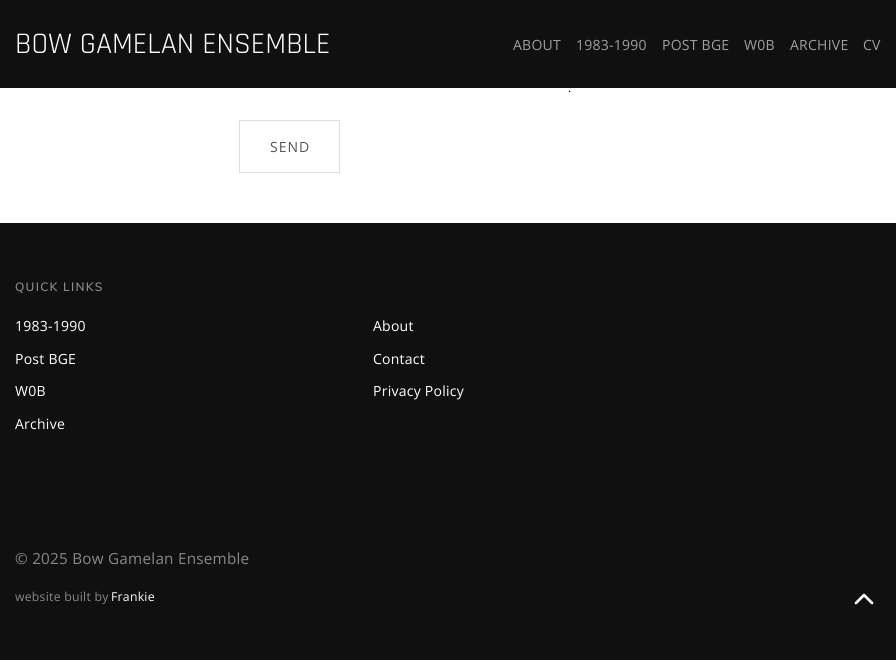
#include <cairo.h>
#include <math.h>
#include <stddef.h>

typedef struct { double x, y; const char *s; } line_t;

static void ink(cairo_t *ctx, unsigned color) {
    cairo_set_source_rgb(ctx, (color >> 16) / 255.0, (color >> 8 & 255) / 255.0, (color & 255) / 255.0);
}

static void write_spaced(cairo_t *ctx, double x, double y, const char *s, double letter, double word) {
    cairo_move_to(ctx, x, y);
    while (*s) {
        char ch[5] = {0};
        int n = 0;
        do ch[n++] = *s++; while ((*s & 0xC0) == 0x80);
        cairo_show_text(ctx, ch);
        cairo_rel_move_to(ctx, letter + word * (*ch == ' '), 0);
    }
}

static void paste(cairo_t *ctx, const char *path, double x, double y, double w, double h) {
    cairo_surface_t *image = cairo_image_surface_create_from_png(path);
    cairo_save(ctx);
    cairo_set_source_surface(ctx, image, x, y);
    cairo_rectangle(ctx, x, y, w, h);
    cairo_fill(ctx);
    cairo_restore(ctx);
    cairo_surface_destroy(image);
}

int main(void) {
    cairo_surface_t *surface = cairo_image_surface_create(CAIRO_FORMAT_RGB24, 896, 660);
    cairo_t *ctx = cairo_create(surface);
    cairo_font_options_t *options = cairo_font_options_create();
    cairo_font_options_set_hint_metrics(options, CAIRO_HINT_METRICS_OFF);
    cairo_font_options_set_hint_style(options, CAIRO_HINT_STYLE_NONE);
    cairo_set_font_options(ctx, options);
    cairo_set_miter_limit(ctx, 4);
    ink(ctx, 0xFFFFFF);
    cairo_paint(ctx);
    ink(ctx, 0x101010);
    cairo_rectangle(ctx, 0, 0, 896, 88);
    cairo_fill(ctx);
    cairo_select_font_face(ctx, "Rajdhani", CAIRO_FONT_SLANT_NORMAL, CAIRO_FONT_WEIGHT_NORMAL);
    cairo_set_font_size(ctx, 30);
    ink(ctx, 0xFFFFFF);
    cairo_move_to(ctx, 15, 53);
    cairo_show_text(ctx, "BOW GAMELAN ENSEMBLE");
    cairo_select_font_face(ctx, "Open Sans", CAIRO_FONT_SLANT_NORMAL, CAIRO_FONT_WEIGHT_NORMAL);
    cairo_set_font_size(ctx, 14);
    ink(ctx, 0x9F9F9F);
    {
        static const line_t items[] = {
            {513, 50, "ABOUT"},
            {576, 50, "1983-1990"},
            {662, 50, "POST BGE"},
            {744, 50, "W0B"},
            {790, 50, "ARCHIVE"},
            {863, 50, "CV"},
        };
        for (size_t i = 0; i < sizeof items / sizeof *items; i++) {
            write_spaced(ctx, items[i].x, items[i].y, items[i].s, 0.25, 0);
        }
    }
    cairo_set_font_size(ctx, 12.25);
    ink(ctx, 0x222222);
    write_spaced(ctx, 568, 92, ".", 0.25, 0);
    cairo_rectangle(ctx, 239.5, 120.5, 100, 52);
    ink(ctx, 0xDDDDDD);
    cairo_set_line_width(ctx, 1);
    cairo_stroke(ctx);
    cairo_set_font_size(ctx, 14);
    ink(ctx, 0x555555);
    write_spaced(ctx, 270, 152, "SEND", 1, 0);
    ink(ctx, 0x101010);
    cairo_rectangle(ctx, 0, 223, 896, 437);
    cairo_fill(ctx);
    cairo_select_font_face(ctx, "Muli SemiBold", CAIRO_FONT_SLANT_NORMAL, CAIRO_FONT_WEIGHT_NORMAL);
    cairo_set_font_size(ctx, 12);
    ink(ctx, 0x888888);
    write_spaced(ctx, 15, 291, "QUICK LINKS", 1.25, 0);
    cairo_select_font_face(ctx, "Open Sans", CAIRO_FONT_SLANT_NORMAL, CAIRO_FONT_WEIGHT_NORMAL);
    cairo_set_font_size(ctx, 14);
    ink(ctx, 0xFFFFFF);
    {
        static const line_t items[] = {
            {15, 331, "1983-1990"},
            {373, 331, "About"},
            {15, 364, "Post BGE"},
            {373, 364, "Contact"},
            {15, 396, "W0B"},
            {373, 396, "Privacy Policy"},
            {15, 429, "Archive"},
        };
        for (size_t i = 0; i < sizeof items / sizeof *items; i++) {
            write_spaced(ctx, items[i].x, items[i].y, items[i].s, 0.25, 0);
        }
    }
    cairo_set_font_size(ctx, 15.25);
    ink(ctx, 0x888888);
    write_spaced(ctx, 15, 564, "© 2025 Bow Gamelan Ensemble", 0.25, 0);
    cairo_set_font_size(ctx, 12.25);
    write_spaced(ctx, 15, 601, "website built by", 0.25, 0);
    ink(ctx, 0xFFFFFF);
    write_spaced(ctx, 111, 601, "Frankie", 0.25, 0);
    paste(ctx, "media/1.png", 854, 593, 20, 12);
    cairo_surface_write_to_png(surface, "image.png");
    cairo_font_options_destroy(options);
    cairo_destroy(ctx);
    cairo_surface_destroy(surface);
    return 0;
}
